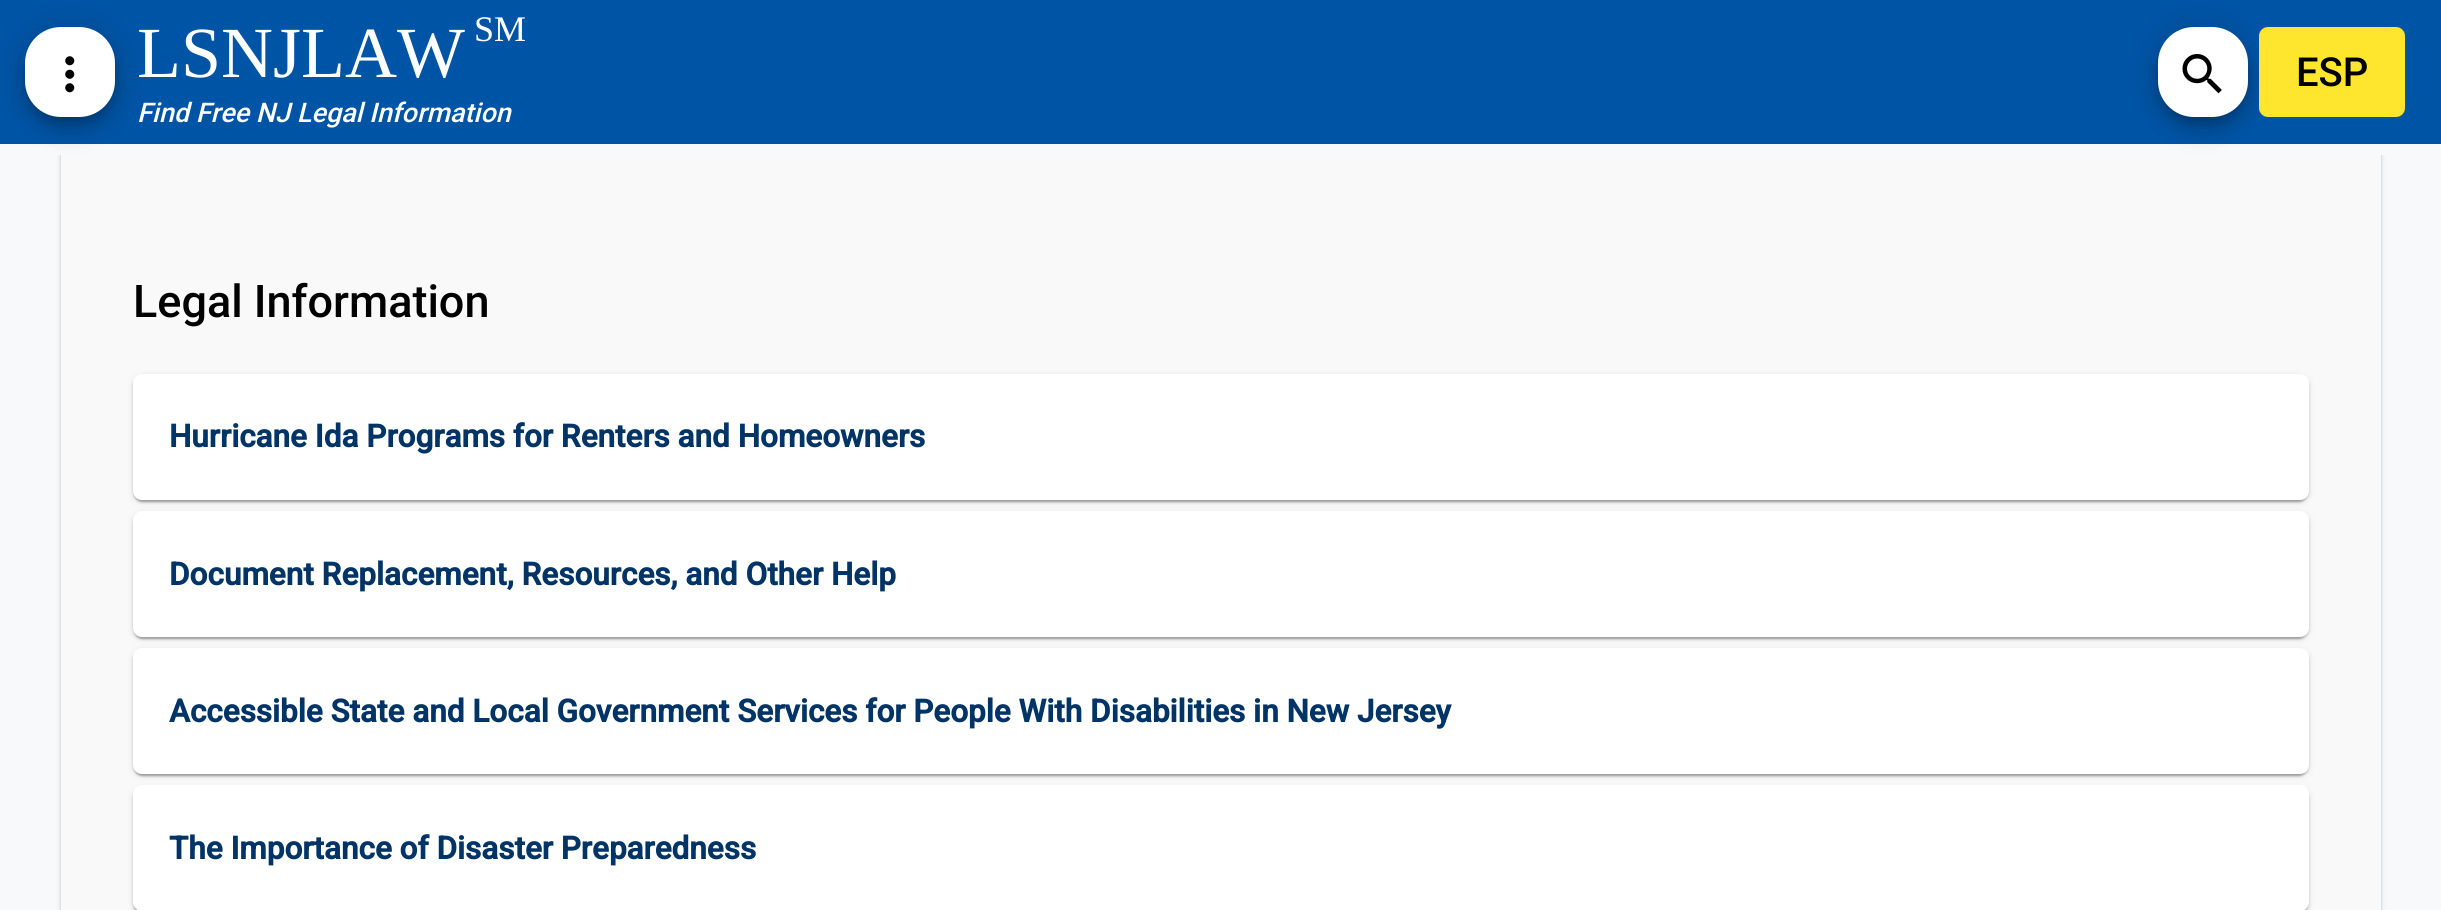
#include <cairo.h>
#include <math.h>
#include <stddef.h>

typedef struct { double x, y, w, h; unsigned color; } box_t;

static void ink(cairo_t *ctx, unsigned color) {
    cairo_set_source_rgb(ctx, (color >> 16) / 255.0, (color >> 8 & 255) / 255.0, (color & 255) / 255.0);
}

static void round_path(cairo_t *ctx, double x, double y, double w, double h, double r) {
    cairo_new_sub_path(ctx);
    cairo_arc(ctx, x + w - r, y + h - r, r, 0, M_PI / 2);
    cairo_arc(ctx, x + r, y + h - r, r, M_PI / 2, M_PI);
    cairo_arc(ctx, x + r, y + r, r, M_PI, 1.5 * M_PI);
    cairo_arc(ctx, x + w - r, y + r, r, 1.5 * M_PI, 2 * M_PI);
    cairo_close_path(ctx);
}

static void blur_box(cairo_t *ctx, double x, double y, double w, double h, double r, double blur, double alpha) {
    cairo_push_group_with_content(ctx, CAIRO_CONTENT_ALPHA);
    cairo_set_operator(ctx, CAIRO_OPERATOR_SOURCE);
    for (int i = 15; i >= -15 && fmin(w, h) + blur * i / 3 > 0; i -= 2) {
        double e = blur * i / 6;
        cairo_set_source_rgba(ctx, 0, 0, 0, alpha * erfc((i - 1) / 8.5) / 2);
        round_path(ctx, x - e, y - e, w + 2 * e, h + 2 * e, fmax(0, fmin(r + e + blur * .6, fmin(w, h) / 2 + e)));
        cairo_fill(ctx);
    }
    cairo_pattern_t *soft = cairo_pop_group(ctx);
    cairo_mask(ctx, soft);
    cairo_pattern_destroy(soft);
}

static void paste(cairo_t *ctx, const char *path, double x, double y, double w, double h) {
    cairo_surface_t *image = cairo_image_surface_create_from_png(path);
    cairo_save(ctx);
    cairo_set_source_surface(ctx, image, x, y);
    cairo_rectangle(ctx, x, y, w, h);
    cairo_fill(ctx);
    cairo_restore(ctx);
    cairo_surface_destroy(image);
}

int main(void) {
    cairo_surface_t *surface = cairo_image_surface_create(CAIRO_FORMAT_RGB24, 2441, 910);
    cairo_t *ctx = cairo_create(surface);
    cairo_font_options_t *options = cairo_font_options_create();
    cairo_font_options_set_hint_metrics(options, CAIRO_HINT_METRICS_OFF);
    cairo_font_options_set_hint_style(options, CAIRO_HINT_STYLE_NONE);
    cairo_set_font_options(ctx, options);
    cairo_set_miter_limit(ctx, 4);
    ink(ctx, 0xF8F9FA);
    cairo_paint(ctx);
    ink(ctx, 0x000000);
    blur_box(ctx, 61, -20, 2320, 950, 9, 3.5, 0.12);
    blur_box(ctx, 61, -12, 2320, 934, 9, 1, 0.14);
    {
        static const box_t items[] = {
            {0, 0, 2441, 144, 0x0054A6},
            {56, 144, 2330, 11, 0xF8F9FA},
            {61, 155, 2320, 755, 0xF9F9F9},
        };
        for (size_t i = 0; i < sizeof items / sizeof *items; i++) {
            ink(ctx, items[i].color);
            cairo_rectangle(ctx, items[i].x, items[i].y, items[i].w, items[i].h);
            cairo_fill(ctx);
        }
    }
    ink(ctx, 0x000000);
    blur_box(ctx, 25, 29, 90, 90, 36, 20, 0.12);
    blur_box(ctx, 25, 41, 90, 90, 36, 11, 0.14);
    blur_box(ctx, 27, 36, 86, 86, 34, 5.5, 0.2);
    ink(ctx, 0xFFFFFF);
    round_path(ctx, 25, 27, 90, 90, 36);
    cairo_fill(ctx);
    paste(ctx, "media/1.png", 65, 56, 10, 37);
    cairo_select_font_face(ctx, "Liberation Serif", CAIRO_FONT_SLANT_NORMAL, CAIRO_FONT_WEIGHT_NORMAL);
    cairo_set_font_size(ctx, 72);
    cairo_move_to(ctx, 137, 77);
    cairo_show_text(ctx, "LSNJLAW");
    cairo_set_font_size(ctx, 36);
    cairo_move_to(ctx, 474, 41);
    cairo_show_text(ctx, "SM");
    cairo_select_font_face(ctx, "Roboto Medium", CAIRO_FONT_SLANT_ITALIC, CAIRO_FONT_WEIGHT_NORMAL);
    cairo_set_font_size(ctx, 27);
    cairo_move_to(ctx, 137, 122);
    cairo_show_text(ctx, "Find Free NJ Legal Information");
    ink(ctx, 0x000000);
    blur_box(ctx, 2158, 29, 90, 90, 36, 20, 0.12);
    blur_box(ctx, 2158, 41, 90, 90, 36, 11, 0.14);
    blur_box(ctx, 2160, 36, 86, 86, 34, 5.5, 0.2);
    ink(ctx, 0xFFFFFF);
    round_path(ctx, 2158, 27, 90, 90, 36);
    cairo_fill(ctx);
    paste(ctx, "media/2.png", 2182, 54, 40, 40);
    ink(ctx, 0xFFE62E);
    round_path(ctx, 2259, 27, 146, 90, 9);
    cairo_fill(ctx);
    cairo_select_font_face(ctx, "Roboto Medium", CAIRO_FONT_SLANT_NORMAL, CAIRO_FONT_WEIGHT_NORMAL);
    cairo_set_font_size(ctx, 40);
    ink(ctx, 0x000000);
    cairo_move_to(ctx, 2296, 86);
    cairo_show_text(ctx, "ESP");
    cairo_set_font_size(ctx, 45);
    cairo_move_to(ctx, 133, 317);
    cairo_show_text(ctx, "Legal Information");
    ink(ctx, 0x000000);
    blur_box(ctx, 133, 376, 2176, 126, 9, 3.5, 0.12);
    blur_box(ctx, 133, 376, 2176, 126, 9, 1, 0.14);
    blur_box(ctx, 135, 380, 2171, 122, 7, 1, 0.2);
    ink(ctx, 0xFFFFFF);
    round_path(ctx, 133, 374, 2176, 126, 9);
    cairo_fill(ctx);
    cairo_select_font_face(ctx, "Roboto", CAIRO_FONT_SLANT_NORMAL, CAIRO_FONT_WEIGHT_BOLD);
    cairo_set_font_size(ctx, 31.5);
    ink(ctx, 0x003366);
    cairo_move_to(ctx, 169, 447);
    cairo_show_text(ctx, "Hurricane Ida Programs for Renters and Homeowners");
    ink(ctx, 0x000000);
    blur_box(ctx, 133, 513, 2176, 126, 9, 3.5, 0.12);
    blur_box(ctx, 133, 513, 2176, 126, 9, 1, 0.14);
    blur_box(ctx, 135, 518, 2171, 121, 7, 1, 0.2);
    ink(ctx, 0xFFFFFF);
    round_path(ctx, 133, 511, 2176, 126, 9);
    cairo_fill(ctx);
    ink(ctx, 0x003366);
    cairo_move_to(ctx, 169, 585);
    cairo_show_text(ctx, "Document Replacement, Resources, and Other Help");
    ink(ctx, 0x000000);
    blur_box(ctx, 133, 650, 2176, 126, 9, 3.5, 0.12);
    blur_box(ctx, 133, 650, 2176, 126, 9, 1, 0.14);
    blur_box(ctx, 135, 655, 2171, 121, 7, 1, 0.2);
    ink(ctx, 0xFFFFFF);
    round_path(ctx, 133, 648, 2176, 126, 9);
    cairo_fill(ctx);
    ink(ctx, 0x003366);
    cairo_move_to(ctx, 169, 722);
    cairo_show_text(ctx, "Accessible State and Local Government Services for People With Disabilities in New Jersey");
    ink(ctx, 0x000000);
    blur_box(ctx, 133, 788, 2176, 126, 9, 3.5, 0.12);
    blur_box(ctx, 133, 788, 2176, 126, 9, 1, 0.14);
    blur_box(ctx, 135, 792, 2171, 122, 7, 1, 0.2);
    ink(ctx, 0xFFFFFF);
    round_path(ctx, 133, 785, 2176, 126, 9);
    cairo_fill(ctx);
    ink(ctx, 0x003366);
    cairo_move_to(ctx, 169, 859);
    cairo_show_text(ctx, "The Importance of Disaster Preparedness");
    cairo_surface_write_to_png(surface, "image.png");
    cairo_font_options_destroy(options);
    cairo_destroy(ctx);
    cairo_surface_destroy(surface);
    return 0;
}
